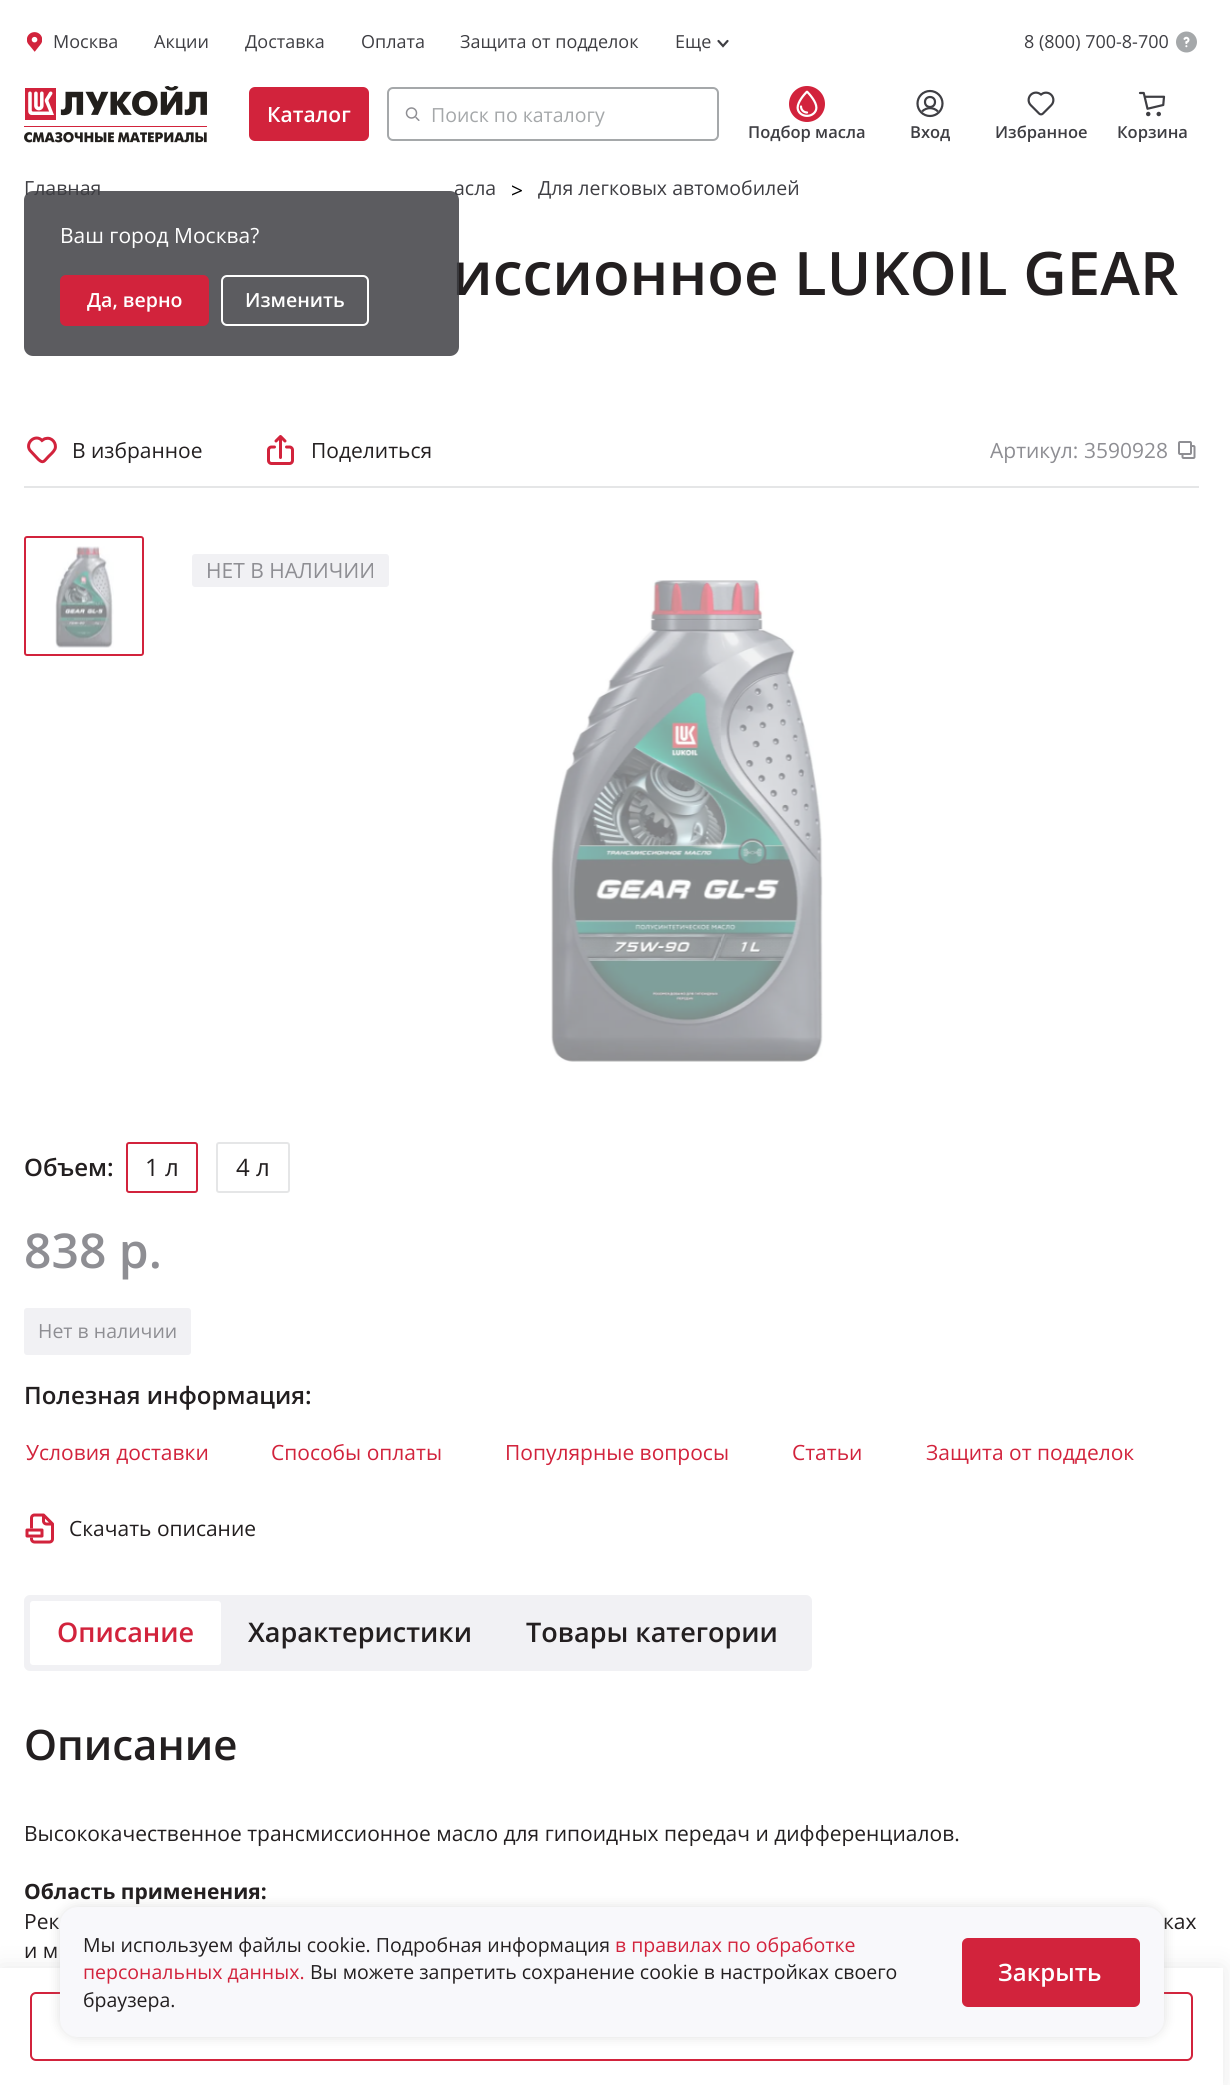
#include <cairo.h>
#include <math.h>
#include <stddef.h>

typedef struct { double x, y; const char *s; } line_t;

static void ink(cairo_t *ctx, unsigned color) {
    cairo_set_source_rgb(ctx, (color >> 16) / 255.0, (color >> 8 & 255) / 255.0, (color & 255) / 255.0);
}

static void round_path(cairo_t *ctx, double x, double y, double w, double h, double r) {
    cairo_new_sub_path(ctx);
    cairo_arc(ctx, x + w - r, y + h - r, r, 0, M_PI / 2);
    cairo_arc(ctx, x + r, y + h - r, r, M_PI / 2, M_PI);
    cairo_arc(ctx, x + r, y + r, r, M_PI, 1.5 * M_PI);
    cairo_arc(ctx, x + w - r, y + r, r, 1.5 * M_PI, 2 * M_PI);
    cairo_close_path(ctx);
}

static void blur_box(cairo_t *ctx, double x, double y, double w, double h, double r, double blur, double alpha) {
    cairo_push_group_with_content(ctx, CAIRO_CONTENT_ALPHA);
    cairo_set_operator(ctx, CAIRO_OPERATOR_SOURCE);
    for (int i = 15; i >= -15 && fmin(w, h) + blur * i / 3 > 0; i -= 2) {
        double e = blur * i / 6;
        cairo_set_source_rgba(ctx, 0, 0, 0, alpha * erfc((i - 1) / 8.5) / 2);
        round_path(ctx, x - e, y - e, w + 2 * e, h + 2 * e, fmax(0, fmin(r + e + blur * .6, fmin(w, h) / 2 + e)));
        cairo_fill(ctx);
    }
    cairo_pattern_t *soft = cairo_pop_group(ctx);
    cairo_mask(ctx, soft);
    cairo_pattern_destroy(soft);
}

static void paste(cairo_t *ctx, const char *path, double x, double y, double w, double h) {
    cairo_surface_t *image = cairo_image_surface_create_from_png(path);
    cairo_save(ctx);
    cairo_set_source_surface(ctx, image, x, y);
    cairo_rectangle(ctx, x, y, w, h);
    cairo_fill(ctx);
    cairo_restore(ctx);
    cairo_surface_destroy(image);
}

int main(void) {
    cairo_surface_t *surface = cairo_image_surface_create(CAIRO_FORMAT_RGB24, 1230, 2085);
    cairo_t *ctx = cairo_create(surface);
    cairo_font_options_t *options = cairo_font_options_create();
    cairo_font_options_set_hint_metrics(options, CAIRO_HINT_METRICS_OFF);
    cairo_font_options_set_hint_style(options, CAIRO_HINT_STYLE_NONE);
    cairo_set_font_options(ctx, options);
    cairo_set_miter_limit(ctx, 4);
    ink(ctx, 0xFFFFFF);
    cairo_paint(ctx);
    paste(ctx, "media/1.png", 27, 32, 15, 20);
    cairo_select_font_face(ctx, "Open Sans", CAIRO_FONT_SLANT_NORMAL, CAIRO_FONT_WEIGHT_NORMAL);
    cairo_set_font_size(ctx, 18);
    ink(ctx, 0x3E3E43);
    {
        static const line_t items[] = {
            {53, 48, "Москва"},
            {154, 48, "Акции"},
            {245, 48, "Доставка"},
            {361, 48, "Оплата"},
            {460, 48, "Защита от подделок"},
            {675, 48, "Еще"},
        };
        for (size_t i = 0; i < sizeof items / sizeof *items; i++) {
            cairo_move_to(ctx, items[i].x, items[i].y);
            cairo_show_text(ctx, items[i].s);
        }
    }
    cairo_new_path(ctx);
    cairo_move_to(ctx, 718.5, 41);
    cairo_line_to(ctx, 723, 46);
    cairo_line_to(ctx, 727.5, 41);
    cairo_set_line_width(ctx, 2.2);
    cairo_set_line_cap(ctx, CAIRO_LINE_CAP_ROUND);
    cairo_stroke(ctx);
    cairo_move_to(ctx, 1024, 48);
    cairo_show_text(ctx, "8 (800) 700-8-700");
    paste(ctx, "media/2.png", 1176, 31, 21, 22);
    paste(ctx, "media/3.png", 24, 86, 183, 57);
    ink(ctx, 0xD2233C);
    round_path(ctx, 249, 87, 120, 54, 6);
    cairo_fill(ctx);
    cairo_select_font_face(ctx, "Open Sans SemiBold", CAIRO_FONT_SLANT_NORMAL, CAIRO_FONT_WEIGHT_NORMAL);
    cairo_set_font_size(ctx, 21);
    ink(ctx, 0xFFFFFF);
    cairo_move_to(ctx, 267, 122);
    cairo_show_text(ctx, "Каталог");
    round_path(ctx, 388, 88, 330, 52, 5);
    ink(ctx, 0xA5A8AA);
    cairo_set_line_width(ctx, 2);
    cairo_set_line_cap(ctx, CAIRO_LINE_CAP_BUTT);
    cairo_stroke(ctx);
    paste(ctx, "media/4.png", 405, 107, 15, 14);
    cairo_select_font_face(ctx, "Open Sans", CAIRO_FONT_SLANT_NORMAL, CAIRO_FONT_WEIGHT_NORMAL);
    cairo_set_font_size(ctx, 19.5);
    cairo_move_to(ctx, 431, 122);
    cairo_show_text(ctx, "Поиск по каталогу");
    paste(ctx, "media/5.png", 789, 86, 36, 36);
    cairo_select_font_face(ctx, "Open Sans SemiBold", CAIRO_FONT_SLANT_NORMAL, CAIRO_FONT_WEIGHT_NORMAL);
    cairo_set_font_size(ctx, 16.5);
    ink(ctx, 0x3E3E43);
    cairo_move_to(ctx, 748, 138);
    cairo_show_text(ctx, "Подбор масла");
    cairo_new_path(ctx);
    cairo_arc(ctx, 930, 103.5, 12.5, 0, 2 * M_PI);
    cairo_set_line_width(ctx, 2.2);
    cairo_stroke(ctx);
    cairo_arc(ctx, 930, 102, 5, 0, 2 * M_PI);
    cairo_stroke(ctx);
    cairo_new_path(ctx);
    cairo_move_to(ctx, 938, 111.5);
    cairo_curve_to(ctx, 933.5, 107, 926.5, 107, 922, 111.5);
    cairo_stroke(ctx);
    cairo_move_to(ctx, 910, 138);
    cairo_show_text(ctx, "Вход");
    paste(ctx, "media/6.png", 1027, 91, 28, 25);
    cairo_move_to(ctx, 995, 138);
    cairo_show_text(ctx, "Избранное");
    paste(ctx, "media/7.png", 1138, 91, 28, 26);
    cairo_move_to(ctx, 1117, 138);
    cairo_show_text(ctx, "Корзина");
    cairo_select_font_face(ctx, "Open Sans", CAIRO_FONT_SLANT_NORMAL, CAIRO_FONT_WEIGHT_NORMAL);
    cairo_set_font_size(ctx, 19.5);
    cairo_move_to(ctx, 24, 195);
    cairo_show_text(ctx, "Главная");
    cairo_move_to(ctx, 454, 195);
    cairo_show_text(ctx, "асла");
    cairo_select_font_face(ctx, "Open Sans SemiBold", CAIRO_FONT_SLANT_NORMAL, CAIRO_FONT_WEIGHT_NORMAL);
    cairo_set_font_size(ctx, 60);
    ink(ctx, 0x231F20);
    cairo_move_to(ctx, 452, 295);
    cairo_show_text(ctx, "иссионное LUKOIL GEAR");
    cairo_set_source_rgba(ctx, 0.243, 0.243, 0.263, 0.84);
    round_path(ctx, 24, 191, 435, 165, 9);
    cairo_fill(ctx);
    cairo_select_font_face(ctx, "Open Sans", CAIRO_FONT_SLANT_NORMAL, CAIRO_FONT_WEIGHT_NORMAL);
    cairo_set_font_size(ctx, 21);
    ink(ctx, 0xFFFFFF);
    cairo_move_to(ctx, 60, 243);
    cairo_show_text(ctx, "Ваш город Москва?");
    ink(ctx, 0xD2233C);
    round_path(ctx, 60, 275, 149, 51, 6);
    cairo_fill(ctx);
    cairo_select_font_face(ctx, "Open Sans SemiBold", CAIRO_FONT_SLANT_NORMAL, CAIRO_FONT_WEIGHT_NORMAL);
    cairo_set_font_size(ctx, 19.5);
    ink(ctx, 0xFFFFFF);
    cairo_move_to(ctx, 87, 307);
    cairo_show_text(ctx, "Да, верно");
    round_path(ctx, 222, 276, 146, 49, 5);
    cairo_set_line_width(ctx, 2);
    cairo_stroke(ctx);
    cairo_move_to(ctx, 245, 307);
    cairo_show_text(ctx, "Изменить");
    cairo_select_font_face(ctx, "Open Sans", CAIRO_FONT_SLANT_NORMAL, CAIRO_FONT_WEIGHT_NORMAL);
    cairo_set_font_size(ctx, 21);
    ink(ctx, 0x000000);
    cairo_move_to(ctx, 511, 198);
    cairo_show_text(ctx, ">");
    cairo_set_font_size(ctx, 19.5);
    ink(ctx, 0x3E3E43);
    cairo_move_to(ctx, 538, 195);
    cairo_show_text(ctx, "Для легковых автомобилей");
    ink(ctx, 0xE5E6E7);
    cairo_rectangle(ctx, 24, 486, 1175, 2);
    cairo_fill(ctx);
    cairo_new_path(ctx);
    cairo_move_to(ctx, 41, 439.5);
    cairo_line_to(ctx, 42, 440.5);
    cairo_curve_to(ctx, 43.5, 439.5, 44.5, 438.5, 46, 438.5);
    cairo_curve_to(ctx, 52, 437, 57, 443.5, 55, 449);
    cairo_curve_to(ctx, 53.5, 452, 50.5, 454.5, 48.5, 456.5);
    cairo_curve_to(ctx, 44, 461, 43.5, 464, 38.5, 459.5);
    cairo_line_to(ctx, 31, 451.5);
    cairo_curve_to(ctx, 24, 445, 33.5, 434, 41, 439.5);
    cairo_close_path(ctx);
    ink(ctx, 0xD2233C);
    cairo_set_line_width(ctx, 3);
    cairo_stroke(ctx);
    cairo_set_font_size(ctx, 21);
    ink(ctx, 0x231F20);
    cairo_move_to(ctx, 72, 458);
    cairo_show_text(ctx, "В избранное");
    paste(ctx, "media/8.png", 267, 435, 27, 30);
    cairo_move_to(ctx, 311, 458);
    cairo_show_text(ctx, "Поделиться");
    ink(ctx, 0x8E8E93);
    cairo_move_to(ctx, 990, 458);
    cairo_show_text(ctx, "Артикул:");
    cairo_move_to(ctx, 1084, 458);
    cairo_show_text(ctx, "3590928");
    paste(ctx, "media/9.png", 1178, 441, 18, 18);
    round_path(ctx, 25, 537, 118, 118, 2);
    ink(ctx, 0xD2233C);
    cairo_set_line_width(ctx, 2);
    cairo_stroke(ctx);
    paste(ctx, "media/10.png", 55, 546, 59, 102);
    ink(ctx, 0xF1F1F4);
    round_path(ctx, 193, 555, 195, 31, 2);
    cairo_fill_preserve(ctx);
    cairo_stroke(ctx);
    ink(ctx, 0x8E8E93);
    cairo_move_to(ctx, 206, 578);
    cairo_show_text(ctx, "НЕТ В НАЛИЧИИ");
    paste(ctx, "media/11.png", 551, 580, 272, 482);
    cairo_select_font_face(ctx, "Open Sans SemiBold", CAIRO_FONT_SLANT_NORMAL, CAIRO_FONT_WEIGHT_NORMAL);
    cairo_set_font_size(ctx, 24);
    ink(ctx, 0x231F20);
    cairo_move_to(ctx, 24, 1176);
    cairo_show_text(ctx, "Объем:");
    round_path(ctx, 127, 1143, 70, 49, 2);
    ink(ctx, 0xD2233C);
    cairo_stroke(ctx);
    cairo_select_font_face(ctx, "Open Sans", CAIRO_FONT_SLANT_NORMAL, CAIRO_FONT_WEIGHT_NORMAL);
    ink(ctx, 0x231F20);
    cairo_move_to(ctx, 145, 1176);
    cairo_show_text(ctx, "1 л");
    round_path(ctx, 217, 1143, 72, 49, 2);
    ink(ctx, 0xE5E6E7);
    cairo_stroke(ctx);
    ink(ctx, 0x231F20);
    cairo_move_to(ctx, 236, 1176);
    cairo_show_text(ctx, "4 л");
    cairo_select_font_face(ctx, "Open Sans SemiBold", CAIRO_FONT_SLANT_NORMAL, CAIRO_FONT_WEIGHT_NORMAL);
    cairo_set_font_size(ctx, 48);
    ink(ctx, 0x8E8E93);
    cairo_move_to(ctx, 24, 1268);
    cairo_show_text(ctx, "838 р.");
    ink(ctx, 0xF1F1F4);
    round_path(ctx, 25, 1309, 165, 45, 2);
    cairo_fill_preserve(ctx);
    cairo_stroke(ctx);
    cairo_select_font_face(ctx, "Open Sans", CAIRO_FONT_SLANT_NORMAL, CAIRO_FONT_WEIGHT_NORMAL);
    cairo_set_font_size(ctx, 19.5);
    ink(ctx, 0x8E8E93);
    cairo_move_to(ctx, 38, 1338);
    cairo_show_text(ctx, "Нет в наличии");
    ink(ctx, 0xEAEAEA);
    blur_box(ctx, 0, 1968, 1223, 117, 0, 12, 1);
    ink(ctx, 0xFFFFFF);
    cairo_rectangle(ctx, 0, 1968, 1223, 117);
    cairo_fill(ctx);
    round_path(ctx, 31, 1993, 1161, 67, 5);
    ink(ctx, 0xD2233C);
    cairo_stroke(ctx);
    cairo_select_font_face(ctx, "Open Sans SemiBold", CAIRO_FONT_SLANT_NORMAL, CAIRO_FONT_WEIGHT_NORMAL);
    cairo_set_font_size(ctx, 24);
    ink(ctx, 0x231F20);
    cairo_move_to(ctx, 24, 1404);
    cairo_show_text(ctx, "Полезная информация:");
    cairo_select_font_face(ctx, "Open Sans", CAIRO_FONT_SLANT_NORMAL, CAIRO_FONT_WEIGHT_NORMAL);
    cairo_set_font_size(ctx, 21);
    ink(ctx, 0xD2233C);
    {
        static const line_t items[] = {
            {26, 1460, "Условия доставки"},
            {271, 1460, "Способы оплаты"},
            {505, 1460, "Популярные вопросы"},
            {792, 1460, "Статьи"},
            {926, 1460, "Защита от подделок"},
        };
        for (size_t i = 0; i < sizeof items / sizeof *items; i++) {
            cairo_move_to(ctx, items[i].x, items[i].y);
            cairo_show_text(ctx, items[i].s);
        }
    }
    paste(ctx, "media/12.png", 25, 1513, 29, 31);
    ink(ctx, 0x231F20);
    cairo_move_to(ctx, 69, 1536);
    cairo_show_text(ctx, "Скачать описание");
    ink(ctx, 0xF1F1F4);
    round_path(ctx, 24, 1595, 788, 76, 6);
    cairo_fill(ctx);
    ink(ctx, 0xFFFFFF);
    round_path(ctx, 30, 1601, 191, 64, 3);
    cairo_fill(ctx);
    cairo_select_font_face(ctx, "Open Sans SemiBold", CAIRO_FONT_SLANT_NORMAL, CAIRO_FONT_WEIGHT_NORMAL);
    cairo_set_font_size(ctx, 27);
    ink(ctx, 0xD2233C);
    cairo_move_to(ctx, 57, 1642);
    cairo_show_text(ctx, "Описание");
    ink(ctx, 0x231F20);
    cairo_move_to(ctx, 248, 1642);
    cairo_show_text(ctx, "Характеристики");
    cairo_move_to(ctx, 526, 1642);
    cairo_show_text(ctx, "Товары категории");
    cairo_set_font_size(ctx, 42);
    cairo_move_to(ctx, 24, 1760);
    cairo_show_text(ctx, "Описание");
    cairo_select_font_face(ctx, "Open Sans", CAIRO_FONT_SLANT_NORMAL, CAIRO_FONT_WEIGHT_NORMAL);
    cairo_set_font_size(ctx, 21);
    cairo_move_to(ctx, 24, 1841);
    cairo_show_text(ctx, "Высококачественное трансмиссионное масло для гипоидных передач и дифференциалов.");
    cairo_select_font_face(ctx, "Open Sans", CAIRO_FONT_SLANT_NORMAL, CAIRO_FONT_WEIGHT_BOLD);
    cairo_move_to(ctx, 24, 1899);
    cairo_show_text(ctx, "Область применения:");
    cairo_select_font_face(ctx, "Open Sans", CAIRO_FONT_SLANT_NORMAL, CAIRO_FONT_WEIGHT_NORMAL);
    {
        static const line_t items[] = {
            {24, 1929, "Рек"},
            {1163, 1929, "ках"},
            {24, 1958, "и м"},
        };
        for (size_t i = 0; i < sizeof items / sizeof *items; i++) {
            cairo_move_to(ctx, items[i].x, items[i].y);
            cairo_show_text(ctx, items[i].s);
        }
    }
    ink(ctx, 0x969696);
    blur_box(ctx, 60, 1907, 1104, 130, 18, 6, 0.3);
    ink(ctx, 0xF8F8FB);
    round_path(ctx, 60, 1907, 1104, 130, 18);
    cairo_fill(ctx);
    cairo_set_font_size(ctx, 19.5);
    ink(ctx, 0x231F20);
    cairo_move_to(ctx, 83, 1952);
    cairo_show_text(ctx, "Мы используем файлы cookie. Подробная информация");
    ink(ctx, 0xD2233C);
    cairo_move_to(ctx, 615, 1952);
    cairo_show_text(ctx, "в правилах по обработке");
    cairo_move_to(ctx, 83, 1979);
    cairo_show_text(ctx, "персональных данных.");
    ink(ctx, 0x231F20);
    cairo_move_to(ctx, 310, 1979);
    cairo_show_text(ctx, "Вы можете запретить сохранение cookie в настройках своего");
    cairo_move_to(ctx, 83, 2007);
    cairo_show_text(ctx, "браузера.");
    ink(ctx, 0xD2233C);
    round_path(ctx, 962, 1938, 178, 69, 6);
    cairo_fill(ctx);
    cairo_select_font_face(ctx, "Open Sans SemiBold", CAIRO_FONT_SLANT_NORMAL, CAIRO_FONT_WEIGHT_NORMAL);
    cairo_set_font_size(ctx, 24);
    ink(ctx, 0xFFFFFF);
    cairo_move_to(ctx, 998, 1981);
    cairo_show_text(ctx, "Закрыть");
    cairo_surface_write_to_png(surface, "image.png");
    cairo_font_options_destroy(options);
    cairo_destroy(ctx);
    cairo_surface_destroy(surface);
    return 0;
}
